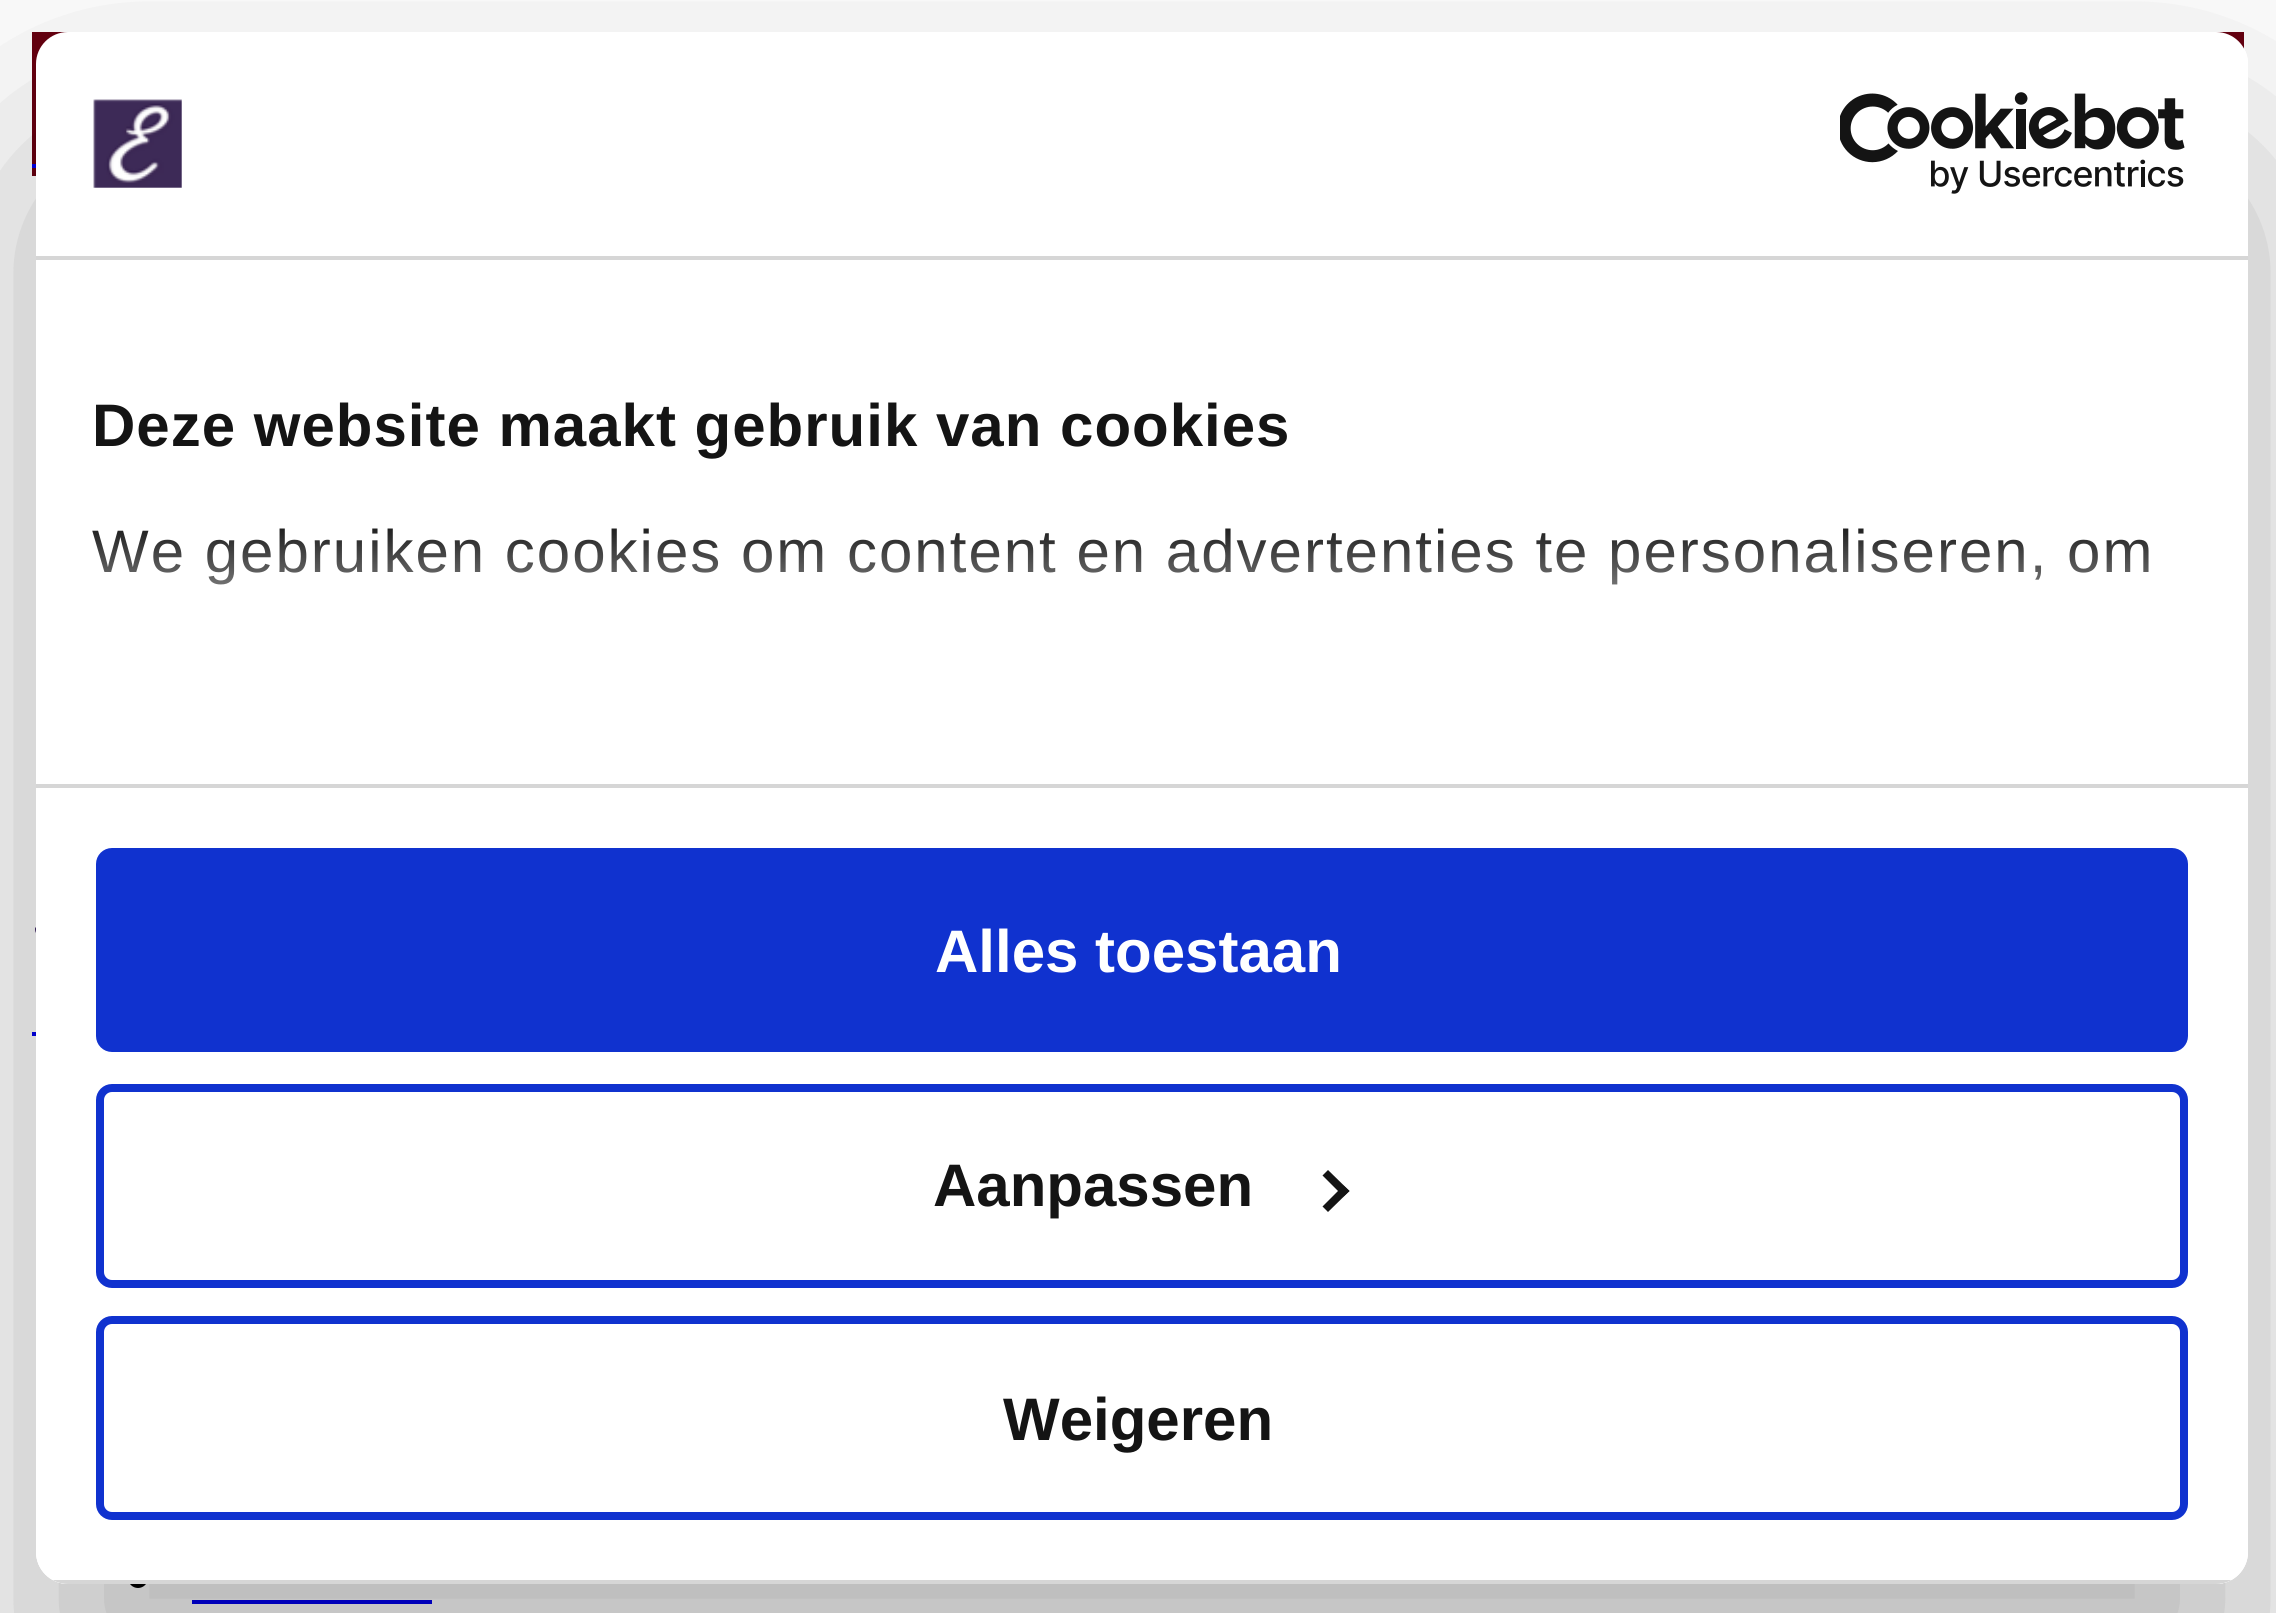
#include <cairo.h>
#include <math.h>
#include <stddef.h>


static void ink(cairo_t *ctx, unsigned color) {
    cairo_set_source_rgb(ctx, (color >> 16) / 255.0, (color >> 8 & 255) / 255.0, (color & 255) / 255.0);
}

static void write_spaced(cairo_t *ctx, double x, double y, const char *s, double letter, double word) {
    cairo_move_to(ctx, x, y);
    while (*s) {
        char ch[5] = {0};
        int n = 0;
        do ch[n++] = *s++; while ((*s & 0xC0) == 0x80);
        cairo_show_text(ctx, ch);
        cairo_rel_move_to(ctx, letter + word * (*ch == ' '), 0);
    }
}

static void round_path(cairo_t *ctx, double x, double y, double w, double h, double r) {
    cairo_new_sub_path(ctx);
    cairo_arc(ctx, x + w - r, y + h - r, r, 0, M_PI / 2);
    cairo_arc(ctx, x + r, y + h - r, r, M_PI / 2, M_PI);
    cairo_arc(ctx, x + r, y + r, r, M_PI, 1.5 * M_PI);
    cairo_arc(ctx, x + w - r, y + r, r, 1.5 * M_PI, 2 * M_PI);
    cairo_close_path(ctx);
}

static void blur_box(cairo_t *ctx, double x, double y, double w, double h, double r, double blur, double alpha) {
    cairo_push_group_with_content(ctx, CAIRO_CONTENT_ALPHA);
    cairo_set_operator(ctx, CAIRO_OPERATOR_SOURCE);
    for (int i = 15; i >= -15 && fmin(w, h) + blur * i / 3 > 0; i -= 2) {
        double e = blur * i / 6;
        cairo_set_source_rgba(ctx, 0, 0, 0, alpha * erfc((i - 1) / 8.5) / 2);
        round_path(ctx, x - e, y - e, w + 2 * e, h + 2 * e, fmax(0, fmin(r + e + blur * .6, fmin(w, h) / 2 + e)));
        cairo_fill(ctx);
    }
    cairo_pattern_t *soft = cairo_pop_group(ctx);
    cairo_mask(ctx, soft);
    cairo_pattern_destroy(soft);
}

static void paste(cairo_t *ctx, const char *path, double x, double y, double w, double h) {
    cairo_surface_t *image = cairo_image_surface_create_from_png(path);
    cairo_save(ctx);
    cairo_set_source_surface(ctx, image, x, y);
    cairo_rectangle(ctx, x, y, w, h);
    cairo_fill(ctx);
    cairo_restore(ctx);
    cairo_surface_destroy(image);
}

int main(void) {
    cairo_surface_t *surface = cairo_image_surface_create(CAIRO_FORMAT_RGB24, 2276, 1613);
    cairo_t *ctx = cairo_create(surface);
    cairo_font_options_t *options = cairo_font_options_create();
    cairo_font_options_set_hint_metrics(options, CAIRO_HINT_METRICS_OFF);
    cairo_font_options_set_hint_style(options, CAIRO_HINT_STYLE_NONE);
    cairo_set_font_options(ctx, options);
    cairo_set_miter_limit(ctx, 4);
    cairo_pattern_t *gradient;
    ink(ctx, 0xFFFFFF);
    cairo_paint(ctx);
    ink(ctx, 0x670010);
    cairo_rectangle(ctx, 32, 32, 2212, 144);
    cairo_fill(ctx);
    ink(ctx, 0x0000EE);
    cairo_rectangle(ctx, 32, 164, 4, 4);
    cairo_fill(ctx);
    paste(ctx, "media/1.png", 35, 927, 1, 6);
    cairo_rectangle(ctx, 32, 1032, 4, 4);
    cairo_fill(ctx);
    ink(ctx, 0x000000);
    cairo_arc(ctx, 138, 1578, 10, 0, 2 * M_PI);
    cairo_fill(ctx);
    ink(ctx, 0x0000EE);
    cairo_rectangle(ctx, 192, 1600, 240, 4);
    cairo_fill(ctx);
    cairo_save(ctx);
    cairo_set_fill_rule(ctx, CAIRO_FILL_RULE_EVEN_ODD);
    cairo_new_path(ctx);
    cairo_move_to(ctx, 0, 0);
    cairo_line_to(ctx, 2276, 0);
    cairo_line_to(ctx, 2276, 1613);
    cairo_line_to(ctx, 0, 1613);
    cairo_close_path(ctx);
    cairo_move_to(ctx, 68, 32);
    cairo_line_to(ctx, 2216, 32);
    cairo_curve_to(ctx, 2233.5, 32, 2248, 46.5, 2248, 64);
    cairo_line_to(ctx, 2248, 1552);
    cairo_curve_to(ctx, 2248, 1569.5, 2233.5, 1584, 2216, 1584);
    cairo_line_to(ctx, 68, 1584);
    cairo_curve_to(ctx, 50.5, 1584, 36, 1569.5, 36, 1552);
    cairo_line_to(ctx, 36, 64);
    cairo_curve_to(ctx, 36, 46.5, 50.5, 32, 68, 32);
    cairo_close_path(ctx);
    cairo_clip(ctx);
    ink(ctx, 0x000000);
    blur_box(ctx, 36, 160, 2212, 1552, 32, 136, 0.3);
    cairo_restore(ctx);
    ink(ctx, 0xFFFFFF);
    round_path(ctx, 36, 32, 2212, 1552, 32);
    cairo_fill(ctx);
    ink(ctx, 0xD6D6D6);
    cairo_rectangle(ctx, 36, 256, 2212, 4);
    cairo_fill(ctx);
    paste(ctx, "media/2.png", 93, 99, 89, 89);
    paste(ctx, "media/3.png", 1840, 92, 345, 102);
    cairo_rectangle(ctx, 36, 784, 2212, 4);
    cairo_fill(ctx);
    cairo_select_font_face(ctx, "Liberation Sans", CAIRO_FONT_SLANT_NORMAL, CAIRO_FONT_WEIGHT_BOLD);
    cairo_set_font_size(ctx, 60);
    ink(ctx, 0x141414);
    write_spaced(ctx, 92, 446, "Deze website maakt gebruik van cookies", 1, 0);
    cairo_select_font_face(ctx, "Liberation Sans", CAIRO_FONT_SLANT_NORMAL, CAIRO_FONT_WEIGHT_NORMAL);
    write_spaced(ctx, 92, 572, "We gebruiken cookies om content en advertenties te personaliseren, om", 2, 0);
    gradient = cairo_pattern_create_linear(1114, 784, 1114, 520);
    cairo_pattern_add_color_stop_rgba(gradient, 0, 1, 1, 1, 1);
    cairo_pattern_add_color_stop_rgba(gradient, 0.5, 1, 1, 1, 0.8);
    cairo_pattern_add_color_stop_rgba(gradient, 1, 1, 1, 1, 0);
    cairo_set_source(ctx, gradient);
    cairo_pattern_destroy(gradient);
    cairo_rectangle(ctx, 92, 528, 2057, 57);
    cairo_fill(ctx);
    cairo_save(ctx);
    round_path(ctx, 36, 32, 2212, 1552, 32);
    cairo_clip(ctx);
    ink(ctx, 0xD6D6D6);
    cairo_rectangle(ctx, 52, 1580, 2180, 4);
    cairo_fill(ctx);
    cairo_restore(ctx);
    ink(ctx, 0x1032CF);
    round_path(ctx, 100, 852, 2084, 196, 12);
    cairo_fill_preserve(ctx);
    cairo_set_line_width(ctx, 8);
    cairo_stroke(ctx);
    cairo_select_font_face(ctx, "Liberation Sans", CAIRO_FONT_SLANT_NORMAL, CAIRO_FONT_WEIGHT_BOLD);
    ink(ctx, 0xFFFFFF);
    cairo_move_to(ctx, 935, 972);
    cairo_show_text(ctx, "Alles toestaan");
    round_path(ctx, 100, 1088, 2084, 196, 12);
    ink(ctx, 0x1032CF);
    cairo_stroke(ctx);
    ink(ctx, 0x141414);
    cairo_move_to(ctx, 933, 1206);
    cairo_show_text(ctx, "Aanpassen");
    cairo_new_path(ctx);
    cairo_move_to(ctx, 1328, 1170);
    cairo_line_to(ctx, 1349.5, 1191);
    cairo_line_to(ctx, 1343.5, 1196.5);
    cairo_line_to(ctx, 1322.5, 1175.5);
    cairo_close_path(ctx);
    cairo_fill(ctx);
    cairo_new_path(ctx);
    cairo_move_to(ctx, 1343.5, 1185.5);
    cairo_line_to(ctx, 1349.5, 1191);
    cairo_line_to(ctx, 1328, 1212);
    cairo_line_to(ctx, 1322.5, 1206.5);
    cairo_close_path(ctx);
    cairo_fill(ctx);
    round_path(ctx, 100, 1320, 2084, 196, 12);
    ink(ctx, 0x1032CF);
    cairo_stroke(ctx);
    ink(ctx, 0x141414);
    cairo_move_to(ctx, 1003, 1440);
    cairo_show_text(ctx, "Weigeren");
    cairo_surface_write_to_png(surface, "image.png");
    cairo_font_options_destroy(options);
    cairo_destroy(ctx);
    cairo_surface_destroy(surface);
    return 0;
}
